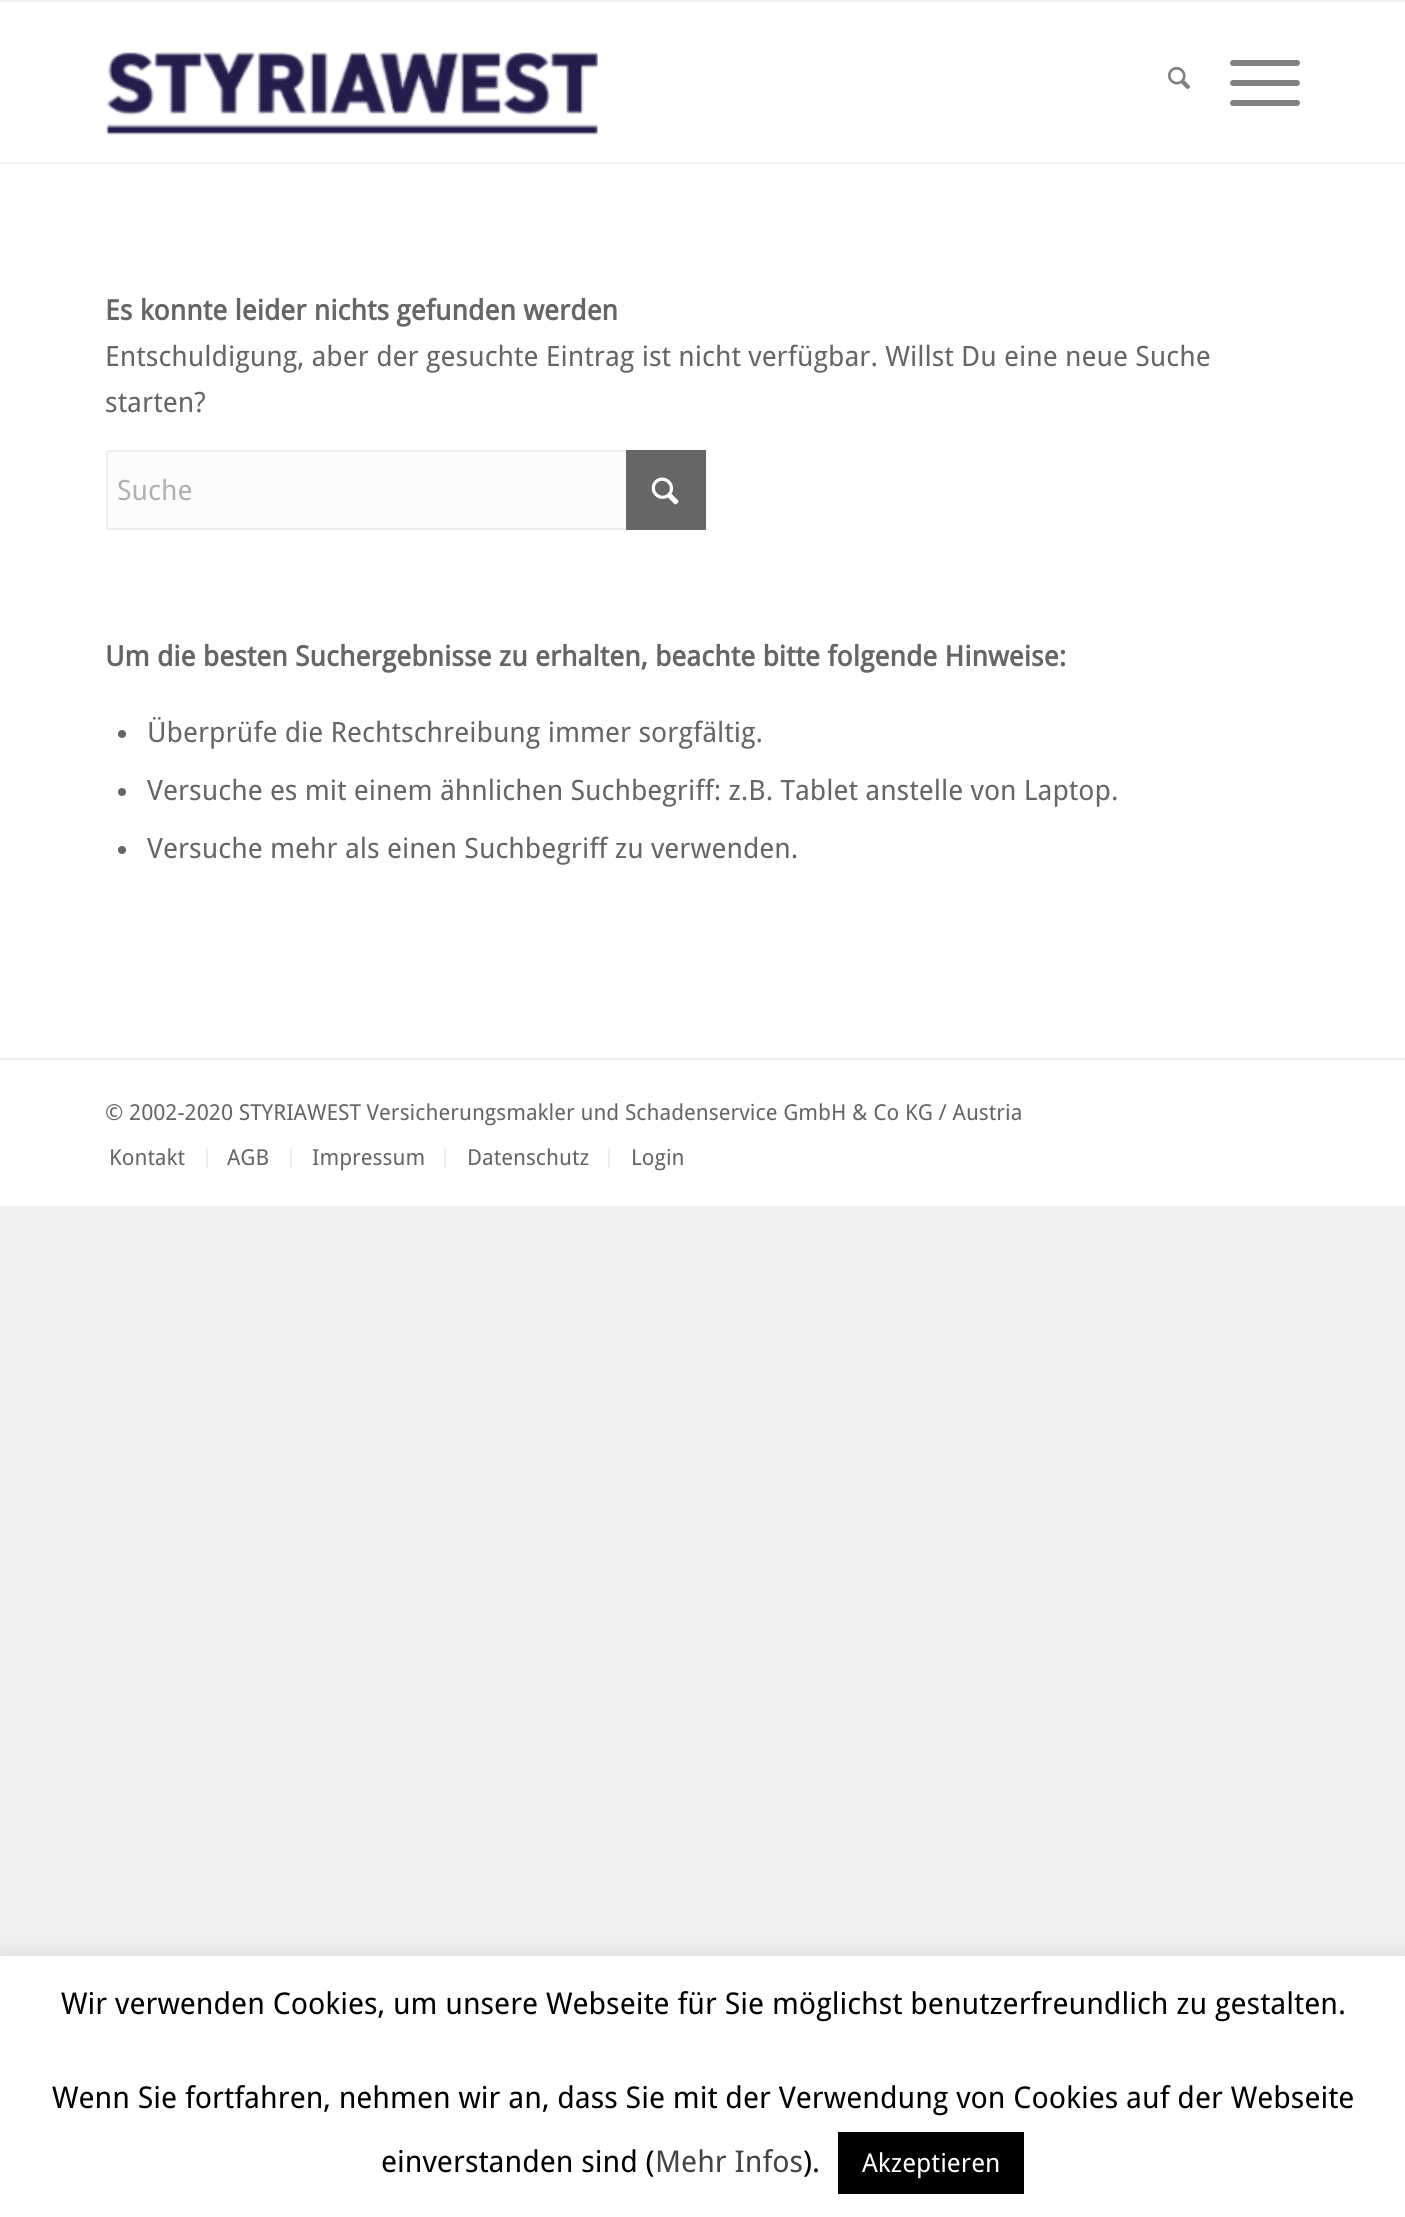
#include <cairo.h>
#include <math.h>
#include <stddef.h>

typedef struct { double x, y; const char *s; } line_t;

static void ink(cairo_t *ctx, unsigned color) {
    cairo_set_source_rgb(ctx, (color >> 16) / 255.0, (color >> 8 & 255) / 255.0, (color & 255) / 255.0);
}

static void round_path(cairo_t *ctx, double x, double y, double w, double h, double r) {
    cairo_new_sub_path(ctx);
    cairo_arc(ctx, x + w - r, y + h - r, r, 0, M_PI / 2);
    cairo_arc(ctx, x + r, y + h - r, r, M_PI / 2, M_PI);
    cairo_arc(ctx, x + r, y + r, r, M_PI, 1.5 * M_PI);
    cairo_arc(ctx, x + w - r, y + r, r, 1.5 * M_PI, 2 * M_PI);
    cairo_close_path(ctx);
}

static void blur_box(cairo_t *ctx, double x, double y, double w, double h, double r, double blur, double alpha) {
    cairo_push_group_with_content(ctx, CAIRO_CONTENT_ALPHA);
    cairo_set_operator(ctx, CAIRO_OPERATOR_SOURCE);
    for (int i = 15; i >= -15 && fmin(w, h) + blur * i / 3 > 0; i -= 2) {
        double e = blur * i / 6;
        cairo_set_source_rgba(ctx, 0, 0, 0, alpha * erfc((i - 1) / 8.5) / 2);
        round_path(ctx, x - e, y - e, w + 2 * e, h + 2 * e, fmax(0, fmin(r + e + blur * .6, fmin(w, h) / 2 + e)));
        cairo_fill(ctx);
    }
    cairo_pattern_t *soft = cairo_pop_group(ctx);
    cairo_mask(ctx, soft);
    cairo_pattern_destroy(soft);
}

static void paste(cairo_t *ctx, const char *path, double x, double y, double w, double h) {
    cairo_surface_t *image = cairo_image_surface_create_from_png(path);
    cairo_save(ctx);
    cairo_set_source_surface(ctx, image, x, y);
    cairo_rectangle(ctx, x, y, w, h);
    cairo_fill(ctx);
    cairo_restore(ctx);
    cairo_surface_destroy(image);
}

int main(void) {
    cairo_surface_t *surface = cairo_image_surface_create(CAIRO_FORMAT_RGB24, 1405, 2217);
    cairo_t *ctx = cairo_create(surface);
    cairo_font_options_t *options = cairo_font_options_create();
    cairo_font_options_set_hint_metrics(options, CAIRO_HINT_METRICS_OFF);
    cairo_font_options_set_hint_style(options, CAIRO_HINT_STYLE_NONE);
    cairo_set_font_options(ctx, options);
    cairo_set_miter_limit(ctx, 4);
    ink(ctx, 0xF0F0F0);
    cairo_paint(ctx);
    ink(ctx, 0xFFFFFF);
    cairo_rectangle(ctx, 0, 2, 1405, 160);
    cairo_fill(ctx);
    paste(ctx, "media/1.png", 106, 52, 492, 83);
    paste(ctx, "media/2.png", 1168, 66, 22, 23);
    ink(ctx, 0x808080);
    round_path(ctx, 1230, 80, 70, 6, 3);
    cairo_fill(ctx);
    round_path(ctx, 1230, 60, 70, 6, 3);
    cairo_fill(ctx);
    round_path(ctx, 1230, 100, 70, 6, 3);
    cairo_fill(ctx);
    ink(ctx, 0xFFFFFF);
    cairo_rectangle(ctx, 0, 164, 1405, 1042);
    cairo_fill(ctx);
    cairo_select_font_face(ctx, "Droid Sans", CAIRO_FONT_SLANT_NORMAL, CAIRO_FONT_WEIGHT_BOLD);
    cairo_set_font_size(ctx, 28);
    ink(ctx, 0x666666);
    cairo_move_to(ctx, 105, 320);
    cairo_show_text(ctx, "Es konnte leider nichts gefunden werden");
    cairo_select_font_face(ctx, "Droid Sans", CAIRO_FONT_SLANT_NORMAL, CAIRO_FONT_WEIGHT_NORMAL);
    cairo_move_to(ctx, 105, 366);
    cairo_show_text(ctx, "Entschuldigung, aber der gesuchte Eintrag ist nicht verfügbar. Willst Du eine neue Suche");
    cairo_move_to(ctx, 105, 412);
    cairo_show_text(ctx, "starten?");
    ink(ctx, 0xFCFCFC);
    cairo_rectangle(ctx, 108, 452, 518, 76);
    cairo_fill(ctx);
    cairo_rectangle(ctx, 107, 451, 598, 78);
    ink(ctx, 0xEEEEEE);
    cairo_stroke(ctx);
    ink(ctx, 0x666666);
    cairo_rectangle(ctx, 626, 450, 80, 80);
    cairo_fill(ctx);
    ink(ctx, 0xB1B1B1);
    cairo_move_to(ctx, 117, 500);
    cairo_show_text(ctx, "Suche");
    paste(ctx, "media/3.png", 651, 477, 28, 28);
    cairo_select_font_face(ctx, "Droid Sans", CAIRO_FONT_SLANT_NORMAL, CAIRO_FONT_WEIGHT_BOLD);
    ink(ctx, 0x666666);
    cairo_move_to(ctx, 105, 666);
    cairo_show_text(ctx, "Um die besten Suchergebnisse zu erhalten, beachte bitte folgende Hinweise:");
    cairo_new_path(ctx);
    cairo_arc(ctx, 122, 734, 4, 0, 2 * M_PI);
    cairo_fill(ctx);
    cairo_select_font_face(ctx, "Droid Sans", CAIRO_FONT_SLANT_NORMAL, CAIRO_FONT_WEIGHT_NORMAL);
    cairo_move_to(ctx, 147, 742);
    cairo_show_text(ctx, "Überprüfe die Rechtschreibung immer sorgfältig.");
    cairo_new_path(ctx);
    cairo_arc(ctx, 122, 792, 4, 0, 2 * M_PI);
    cairo_fill(ctx);
    cairo_move_to(ctx, 147, 800);
    cairo_show_text(ctx, "Versuche es mit einem ähnlichen Suchbegriff: z.B. Tablet anstelle von Laptop.");
    cairo_new_path(ctx);
    cairo_arc(ctx, 122, 850, 4, 0, 2 * M_PI);
    cairo_fill(ctx);
    cairo_move_to(ctx, 147, 858);
    cairo_show_text(ctx, "Versuche mehr als einen Suchbegriff zu verwenden.");
    ink(ctx, 0xEEEEEE);
    cairo_rectangle(ctx, 0, 1058, 1405, 2);
    cairo_fill(ctx);
    cairo_set_font_size(ctx, 22);
    ink(ctx, 0x666666);
    cairo_move_to(ctx, 105, 1120);
    cairo_show_text(ctx, "© 2002-2020 STYRIAWEST Versicherungsmakler und Schadenservice GmbH & Co KG / Austria");
    cairo_move_to(ctx, 109, 1165);
    cairo_show_text(ctx, "Kontakt");
    ink(ctx, 0xEEEEEE);
    cairo_rectangle(ctx, 206, 1148, 2, 20);
    cairo_fill(ctx);
    ink(ctx, 0x666666);
    cairo_move_to(ctx, 227, 1165);
    cairo_show_text(ctx, "AGB");
    ink(ctx, 0xEEEEEE);
    cairo_rectangle(ctx, 290, 1148, 2, 20);
    cairo_fill(ctx);
    ink(ctx, 0x666666);
    cairo_move_to(ctx, 312, 1165);
    cairo_show_text(ctx, "Impressum");
    ink(ctx, 0xEEEEEE);
    cairo_rectangle(ctx, 444, 1148, 2, 20);
    cairo_fill(ctx);
    ink(ctx, 0x666666);
    cairo_move_to(ctx, 467, 1165);
    cairo_show_text(ctx, "Datenschutz");
    ink(ctx, 0xEEEEEE);
    cairo_rectangle(ctx, 608, 1148, 2, 20);
    cairo_fill(ctx);
    ink(ctx, 0x666666);
    cairo_move_to(ctx, 631, 1165);
    cairo_show_text(ctx, "Login");
    ink(ctx, 0xACABAB);
    blur_box(ctx, 0, 1954, 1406, 262, 0, 10, 0.3);
    ink(ctx, 0xFFFFFF);
    cairo_rectangle(ctx, 0, 1956, 1405, 261);
    cairo_fill(ctx);
    cairo_set_font_size(ctx, 30);
    ink(ctx, 0x000000);
    {
        static const line_t items[] = {
            {61, 2014, "Wir verwenden Cookies, um unsere Webseite für Sie möglichst benutzerfreundlich zu gestalten."},
            {52, 2108, "Wenn Sie fortfahren, nehmen wir an, dass Sie mit der Verwendung von Cookies auf der Webseite"},
            {381, 2172, "einverstanden sind ("},
        };
        for (size_t i = 0; i < sizeof items / sizeof *items; i++) {
            cairo_move_to(ctx, items[i].x, items[i].y);
            cairo_show_text(ctx, items[i].s);
        }
    }
    ink(ctx, 0x444444);
    cairo_move_to(ctx, 655, 2172);
    cairo_show_text(ctx, "Mehr Infos");
    ink(ctx, 0x000000);
    cairo_move_to(ctx, 803, 2172);
    cairo_show_text(ctx, ").");
    cairo_rectangle(ctx, 838, 2132, 186, 62);
    cairo_fill(ctx);
    cairo_set_font_size(ctx, 26);
    ink(ctx, 0xFFFFFF);
    cairo_move_to(ctx, 862, 2172);
    cairo_show_text(ctx, "Akzeptieren");
    cairo_surface_write_to_png(surface, "image.png");
    cairo_font_options_destroy(options);
    cairo_destroy(ctx);
    cairo_surface_destroy(surface);
    return 0;
}
